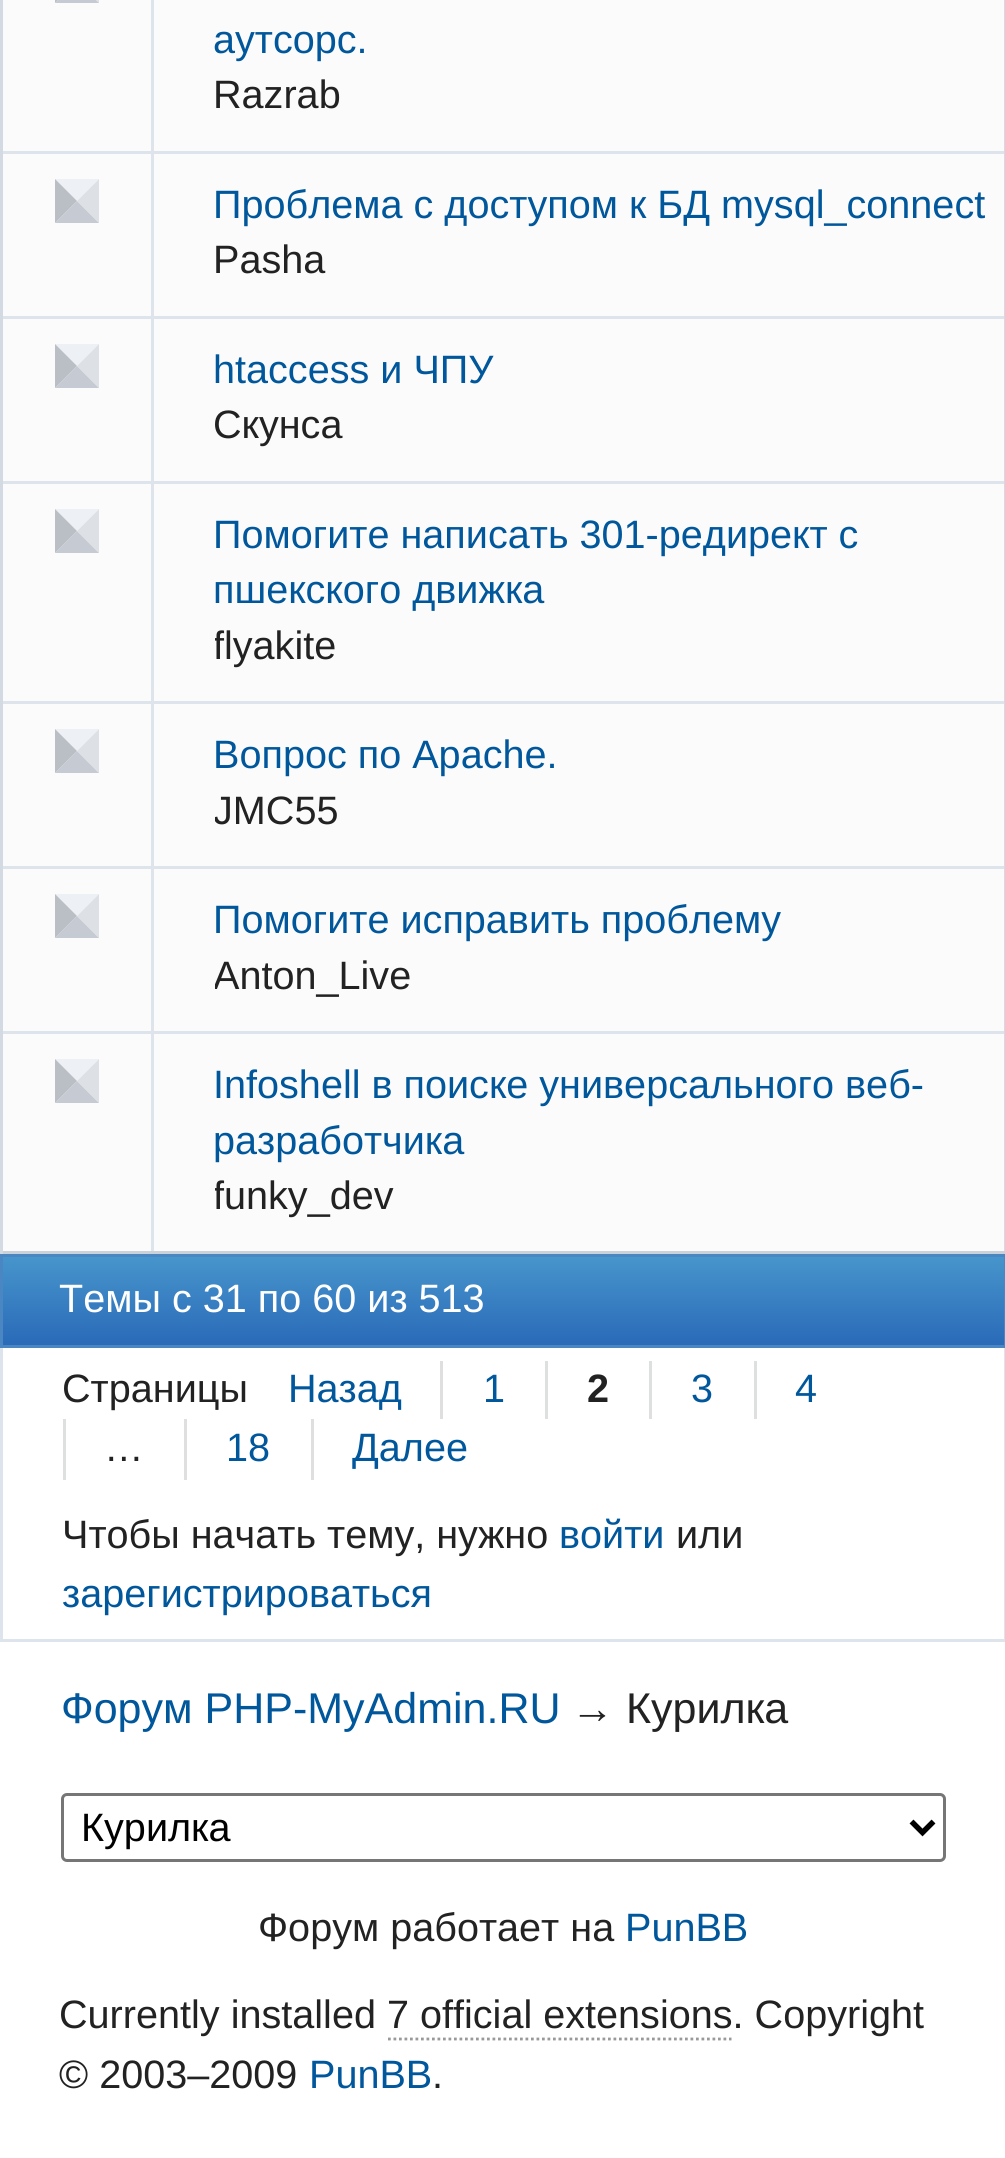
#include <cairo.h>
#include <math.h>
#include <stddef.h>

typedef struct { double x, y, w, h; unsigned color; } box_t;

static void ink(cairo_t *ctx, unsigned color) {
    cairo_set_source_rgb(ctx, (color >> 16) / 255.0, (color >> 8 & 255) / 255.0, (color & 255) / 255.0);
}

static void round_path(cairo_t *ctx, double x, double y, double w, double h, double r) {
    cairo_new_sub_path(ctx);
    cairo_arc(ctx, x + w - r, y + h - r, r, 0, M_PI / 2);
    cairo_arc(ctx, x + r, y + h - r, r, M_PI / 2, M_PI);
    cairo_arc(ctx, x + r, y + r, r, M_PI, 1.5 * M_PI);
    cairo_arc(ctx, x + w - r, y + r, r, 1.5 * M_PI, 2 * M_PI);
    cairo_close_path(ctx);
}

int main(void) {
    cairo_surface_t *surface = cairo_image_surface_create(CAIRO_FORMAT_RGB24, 1005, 2158);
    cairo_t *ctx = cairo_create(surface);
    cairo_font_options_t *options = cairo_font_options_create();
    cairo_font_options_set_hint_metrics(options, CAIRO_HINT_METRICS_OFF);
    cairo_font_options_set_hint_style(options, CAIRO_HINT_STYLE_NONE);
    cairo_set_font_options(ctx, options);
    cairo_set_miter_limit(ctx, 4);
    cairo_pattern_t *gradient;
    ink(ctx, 0xFFFFFF);
    cairo_paint(ctx);
    {
        static const box_t items[] = {
            {3, 0, 1001, 1251, 0xFBFBFB},
            {1004, 0, 1, 1254, 0xD3DAE1},
            {0, 1251, 1005, 3, 0xCBD1D8},
            {0, 0, 3, 1254, 0xD3DAE1},
        };
        for (size_t i = 0; i < sizeof items / sizeof *items; i++) {
            ink(ctx, items[i].color);
            cairo_rectangle(ctx, items[i].x, items[i].y, items[i].w, items[i].h);
            cairo_fill(ctx);
        }
    }
    ink(ctx, 0xDDE0E4);
    cairo_new_path(ctx);
    cairo_move_to(ctx, 99, -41);
    cairo_line_to(ctx, 99, 3);
    cairo_line_to(ctx, 77, -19);
    cairo_close_path(ctx);
    cairo_fill(ctx);
    ink(ctx, 0xC6CBD3);
    cairo_new_path(ctx);
    cairo_move_to(ctx, 99, 3);
    cairo_line_to(ctx, 55, 3);
    cairo_line_to(ctx, 77, -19);
    cairo_close_path(ctx);
    cairo_fill(ctx);
    ink(ctx, 0xBABFC6);
    cairo_new_path(ctx);
    cairo_move_to(ctx, 55, 3);
    cairo_line_to(ctx, 55, -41);
    cairo_line_to(ctx, 77, -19);
    cairo_close_path(ctx);
    cairo_fill(ctx);
    ink(ctx, 0xDDE4EB);
    cairo_rectangle(ctx, 151, 0, 3, 151);
    cairo_fill(ctx);
    cairo_select_font_face(ctx, "Liberation Sans", CAIRO_FONT_SLANT_NORMAL, CAIRO_FONT_WEIGHT_NORMAL);
    cairo_set_font_size(ctx, 39.6);
    ink(ctx, 0x00579C);
    cairo_move_to(ctx, 213, 53);
    cairo_show_text(ctx, "аутсорс.");
    ink(ctx, 0x222222);
    cairo_move_to(ctx, 213, 108);
    cairo_show_text(ctx, "Razrab");
    ink(ctx, 0xDDE4EB);
    cairo_rectangle(ctx, 3, 151, 1001, 3);
    cairo_fill(ctx);
    ink(ctx, 0xEDF1F5);
    cairo_new_path(ctx);
    cairo_move_to(ctx, 55, 179);
    cairo_line_to(ctx, 99, 179);
    cairo_line_to(ctx, 77, 201);
    cairo_close_path(ctx);
    cairo_fill(ctx);
    ink(ctx, 0xDDE0E4);
    cairo_new_path(ctx);
    cairo_move_to(ctx, 99, 179);
    cairo_line_to(ctx, 99, 223);
    cairo_line_to(ctx, 77, 201);
    cairo_close_path(ctx);
    cairo_fill(ctx);
    ink(ctx, 0xC6CBD3);
    cairo_new_path(ctx);
    cairo_move_to(ctx, 99, 223);
    cairo_line_to(ctx, 55, 223);
    cairo_line_to(ctx, 77, 201);
    cairo_close_path(ctx);
    cairo_fill(ctx);
    ink(ctx, 0xBABFC6);
    cairo_new_path(ctx);
    cairo_move_to(ctx, 55, 223);
    cairo_line_to(ctx, 55, 179);
    cairo_line_to(ctx, 77, 201);
    cairo_close_path(ctx);
    cairo_fill(ctx);
    ink(ctx, 0xDDE4EB);
    cairo_rectangle(ctx, 151, 154, 3, 162);
    cairo_fill(ctx);
    ink(ctx, 0x00579C);
    cairo_move_to(ctx, 213, 218);
    cairo_show_text(ctx, "Проблема с доступом к БД mysql_connect");
    ink(ctx, 0x222222);
    cairo_move_to(ctx, 213, 273);
    cairo_show_text(ctx, "Pasha");
    ink(ctx, 0xDDE4EB);
    cairo_rectangle(ctx, 3, 316, 1001, 3);
    cairo_fill(ctx);
    ink(ctx, 0xEDF1F5);
    cairo_new_path(ctx);
    cairo_move_to(ctx, 55, 344);
    cairo_line_to(ctx, 99, 344);
    cairo_line_to(ctx, 77, 366);
    cairo_close_path(ctx);
    cairo_fill(ctx);
    ink(ctx, 0xDDE0E4);
    cairo_new_path(ctx);
    cairo_move_to(ctx, 99, 344);
    cairo_line_to(ctx, 99, 388);
    cairo_line_to(ctx, 77, 366);
    cairo_close_path(ctx);
    cairo_fill(ctx);
    ink(ctx, 0xC6CBD3);
    cairo_new_path(ctx);
    cairo_move_to(ctx, 99, 388);
    cairo_line_to(ctx, 55, 388);
    cairo_line_to(ctx, 77, 366);
    cairo_close_path(ctx);
    cairo_fill(ctx);
    ink(ctx, 0xBABFC6);
    cairo_new_path(ctx);
    cairo_move_to(ctx, 55, 388);
    cairo_line_to(ctx, 55, 344);
    cairo_line_to(ctx, 77, 366);
    cairo_close_path(ctx);
    cairo_fill(ctx);
    ink(ctx, 0xDDE4EB);
    cairo_rectangle(ctx, 151, 319, 3, 162);
    cairo_fill(ctx);
    ink(ctx, 0x00579C);
    cairo_move_to(ctx, 213, 383);
    cairo_show_text(ctx, "htaccess и ЧПУ");
    ink(ctx, 0x222222);
    cairo_move_to(ctx, 213, 438);
    cairo_show_text(ctx, "Скунса");
    ink(ctx, 0xDDE4EB);
    cairo_rectangle(ctx, 3, 481, 1001, 3);
    cairo_fill(ctx);
    ink(ctx, 0xEDF1F5);
    cairo_new_path(ctx);
    cairo_move_to(ctx, 55, 509);
    cairo_line_to(ctx, 99, 509);
    cairo_line_to(ctx, 77, 531);
    cairo_close_path(ctx);
    cairo_fill(ctx);
    ink(ctx, 0xDDE0E4);
    cairo_new_path(ctx);
    cairo_move_to(ctx, 99, 509);
    cairo_line_to(ctx, 99, 553);
    cairo_line_to(ctx, 77, 531);
    cairo_close_path(ctx);
    cairo_fill(ctx);
    ink(ctx, 0xC6CBD3);
    cairo_new_path(ctx);
    cairo_move_to(ctx, 99, 553);
    cairo_line_to(ctx, 55, 553);
    cairo_line_to(ctx, 77, 531);
    cairo_close_path(ctx);
    cairo_fill(ctx);
    ink(ctx, 0xBABFC6);
    cairo_new_path(ctx);
    cairo_move_to(ctx, 55, 553);
    cairo_line_to(ctx, 55, 509);
    cairo_line_to(ctx, 77, 531);
    cairo_close_path(ctx);
    cairo_fill(ctx);
    ink(ctx, 0xDDE4EB);
    cairo_rectangle(ctx, 151, 484, 3, 217);
    cairo_fill(ctx);
    ink(ctx, 0x00579C);
    cairo_move_to(ctx, 213, 548);
    cairo_show_text(ctx, "Помогите написать 301-редирект с");
    cairo_move_to(ctx, 213, 603);
    cairo_show_text(ctx, "пшекского движка");
    cairo_save(ctx);
    cairo_rectangle(ctx, 215, 619, 789, 55);
    cairo_clip(ctx);
    ink(ctx, 0x222222);
    cairo_move_to(ctx, 213, 659);
    cairo_show_text(ctx, "flyakite");
    cairo_restore(ctx);
    ink(ctx, 0xDDE4EB);
    cairo_rectangle(ctx, 3, 701, 1001, 3);
    cairo_fill(ctx);
    ink(ctx, 0xEDF1F5);
    cairo_new_path(ctx);
    cairo_move_to(ctx, 55, 729);
    cairo_line_to(ctx, 99, 729);
    cairo_line_to(ctx, 77, 751);
    cairo_close_path(ctx);
    cairo_fill(ctx);
    ink(ctx, 0xDDE0E4);
    cairo_new_path(ctx);
    cairo_move_to(ctx, 99, 729);
    cairo_line_to(ctx, 99, 773);
    cairo_line_to(ctx, 77, 751);
    cairo_close_path(ctx);
    cairo_fill(ctx);
    ink(ctx, 0xC6CBD3);
    cairo_new_path(ctx);
    cairo_move_to(ctx, 99, 773);
    cairo_line_to(ctx, 55, 773);
    cairo_line_to(ctx, 77, 751);
    cairo_close_path(ctx);
    cairo_fill(ctx);
    ink(ctx, 0xBABFC6);
    cairo_new_path(ctx);
    cairo_move_to(ctx, 55, 773);
    cairo_line_to(ctx, 55, 729);
    cairo_line_to(ctx, 77, 751);
    cairo_close_path(ctx);
    cairo_fill(ctx);
    ink(ctx, 0xDDE4EB);
    cairo_rectangle(ctx, 151, 704, 3, 162);
    cairo_fill(ctx);
    ink(ctx, 0x00579C);
    cairo_move_to(ctx, 213, 768);
    cairo_show_text(ctx, "Вопрос по Apache.");
    cairo_save(ctx);
    cairo_rectangle(ctx, 215, 784, 789, 55);
    cairo_clip(ctx);
    ink(ctx, 0x222222);
    cairo_move_to(ctx, 213, 824);
    cairo_show_text(ctx, "JMC55");
    cairo_restore(ctx);
    ink(ctx, 0xDDE4EB);
    cairo_rectangle(ctx, 3, 866, 1001, 3);
    cairo_fill(ctx);
    ink(ctx, 0xEDF1F5);
    cairo_new_path(ctx);
    cairo_move_to(ctx, 55, 894);
    cairo_line_to(ctx, 99, 894);
    cairo_line_to(ctx, 77, 916);
    cairo_close_path(ctx);
    cairo_fill(ctx);
    ink(ctx, 0xDDE0E4);
    cairo_new_path(ctx);
    cairo_move_to(ctx, 99, 894);
    cairo_line_to(ctx, 99, 938);
    cairo_line_to(ctx, 77, 916);
    cairo_close_path(ctx);
    cairo_fill(ctx);
    ink(ctx, 0xC6CBD3);
    cairo_new_path(ctx);
    cairo_move_to(ctx, 99, 938);
    cairo_line_to(ctx, 55, 938);
    cairo_line_to(ctx, 77, 916);
    cairo_close_path(ctx);
    cairo_fill(ctx);
    ink(ctx, 0xBABFC6);
    cairo_new_path(ctx);
    cairo_move_to(ctx, 55, 938);
    cairo_line_to(ctx, 55, 894);
    cairo_line_to(ctx, 77, 916);
    cairo_close_path(ctx);
    cairo_fill(ctx);
    ink(ctx, 0xDDE4EB);
    cairo_rectangle(ctx, 151, 869, 3, 162);
    cairo_fill(ctx);
    ink(ctx, 0x00579C);
    cairo_move_to(ctx, 213, 933);
    cairo_show_text(ctx, "Помогите исправить проблему");
    cairo_save(ctx);
    cairo_rectangle(ctx, 215, 949, 789, 55);
    cairo_clip(ctx);
    ink(ctx, 0x222222);
    cairo_move_to(ctx, 213, 989);
    cairo_show_text(ctx, "Anton_Live");
    cairo_restore(ctx);
    ink(ctx, 0xDDE4EB);
    cairo_rectangle(ctx, 3, 1031, 1001, 3);
    cairo_fill(ctx);
    ink(ctx, 0xEDF1F5);
    cairo_new_path(ctx);
    cairo_move_to(ctx, 55, 1059);
    cairo_line_to(ctx, 99, 1059);
    cairo_line_to(ctx, 77, 1081);
    cairo_close_path(ctx);
    cairo_fill(ctx);
    ink(ctx, 0xDDE0E4);
    cairo_new_path(ctx);
    cairo_move_to(ctx, 99, 1059);
    cairo_line_to(ctx, 99, 1103);
    cairo_line_to(ctx, 77, 1081);
    cairo_close_path(ctx);
    cairo_fill(ctx);
    ink(ctx, 0xC6CBD3);
    cairo_new_path(ctx);
    cairo_move_to(ctx, 99, 1103);
    cairo_line_to(ctx, 55, 1103);
    cairo_line_to(ctx, 77, 1081);
    cairo_close_path(ctx);
    cairo_fill(ctx);
    ink(ctx, 0xBABFC6);
    cairo_new_path(ctx);
    cairo_move_to(ctx, 55, 1103);
    cairo_line_to(ctx, 55, 1059);
    cairo_line_to(ctx, 77, 1081);
    cairo_close_path(ctx);
    cairo_fill(ctx);
    ink(ctx, 0xDDE4EB);
    cairo_rectangle(ctx, 151, 1034, 3, 217);
    cairo_fill(ctx);
    ink(ctx, 0x00579C);
    cairo_move_to(ctx, 213, 1098);
    cairo_show_text(ctx, "Infoshell в поиске универсального веб-");
    cairo_move_to(ctx, 213, 1154);
    cairo_show_text(ctx, "разработчика");
    cairo_save(ctx);
    cairo_rectangle(ctx, 215, 1169, 789, 55);
    cairo_clip(ctx);
    ink(ctx, 0x222222);
    cairo_move_to(ctx, 213, 1209);
    cairo_show_text(ctx, "funky_dev");
    cairo_restore(ctx);
    gradient = cairo_pattern_create_linear(503, 1345, 503, 1257);
    cairo_pattern_add_color_stop_rgba(gradient, 0, 0.165, 0.416, 0.722, 1);
    cairo_pattern_add_color_stop_rgba(gradient, 1, 0.278, 0.584, 0.8, 1);
    cairo_set_source(ctx, gradient);
    cairo_pattern_destroy(gradient);
    cairo_rectangle(ctx, 3, 1257, 1001, 88);
    cairo_fill(ctx);
    cairo_rectangle(ctx, 1.5, 1255.5, 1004, 91);
    ink(ctx, 0x4A86C1);
    cairo_set_line_width(ctx, 3);
    cairo_stroke(ctx);
    ink(ctx, 0xFFFFFF);
    cairo_move_to(ctx, 59, 1312);
    cairo_show_text(ctx, "Темы с 31 по 60 из 513");
    {
        static const box_t items[] = {
            {1004, 1348, 1, 294, 0xDDE4EB},
            {0, 1639, 1005, 3, 0xDDE4EB},
            {0, 1348, 3, 294, 0xDDE4EB},
        };
        for (size_t i = 0; i < sizeof items / sizeof *items; i++) {
            ink(ctx, items[i].color);
            cairo_rectangle(ctx, items[i].x, items[i].y, items[i].w, items[i].h);
            cairo_fill(ctx);
        }
    }
    ink(ctx, 0x222222);
    cairo_move_to(ctx, 62, 1402);
    cairo_show_text(ctx, "Страницы");
    ink(ctx, 0x00579C);
    cairo_move_to(ctx, 288, 1402);
    cairo_show_text(ctx, "Назад");
    ink(ctx, 0xDEDFDF);
    cairo_rectangle(ctx, 440, 1361, 3, 58);
    cairo_fill(ctx);
    ink(ctx, 0x00579C);
    cairo_move_to(ctx, 483, 1402);
    cairo_show_text(ctx, "1");
    ink(ctx, 0xDEDFDF);
    cairo_rectangle(ctx, 545, 1361, 3, 58);
    cairo_fill(ctx);
    cairo_select_font_face(ctx, "Liberation Sans", CAIRO_FONT_SLANT_NORMAL, CAIRO_FONT_WEIGHT_BOLD);
    ink(ctx, 0x222222);
    cairo_move_to(ctx, 587, 1402);
    cairo_show_text(ctx, "2");
    ink(ctx, 0xDEDFDF);
    cairo_rectangle(ctx, 649, 1361, 3, 58);
    cairo_fill(ctx);
    cairo_select_font_face(ctx, "Liberation Sans", CAIRO_FONT_SLANT_NORMAL, CAIRO_FONT_WEIGHT_NORMAL);
    ink(ctx, 0x00579C);
    cairo_move_to(ctx, 691, 1402);
    cairo_show_text(ctx, "3");
    ink(ctx, 0xDEDFDF);
    cairo_rectangle(ctx, 754, 1361, 3, 58);
    cairo_fill(ctx);
    ink(ctx, 0x00579C);
    cairo_move_to(ctx, 795, 1402);
    cairo_show_text(ctx, "4");
    ink(ctx, 0xDEDFDF);
    cairo_rectangle(ctx, 63, 1419, 3, 61);
    cairo_fill(ctx);
    ink(ctx, 0x222222);
    cairo_move_to(ctx, 104, 1461);
    cairo_show_text(ctx, "…");
    ink(ctx, 0xDEDFDF);
    cairo_rectangle(ctx, 184, 1419, 3, 61);
    cairo_fill(ctx);
    ink(ctx, 0x00579C);
    cairo_move_to(ctx, 226, 1461);
    cairo_show_text(ctx, "18");
    ink(ctx, 0xDEDFDF);
    cairo_rectangle(ctx, 311, 1419, 3, 61);
    cairo_fill(ctx);
    ink(ctx, 0x00579C);
    cairo_move_to(ctx, 352, 1461);
    cairo_show_text(ctx, "Далее");
    ink(ctx, 0x222222);
    cairo_move_to(ctx, 62, 1548);
    cairo_show_text(ctx, "Чтобы начать тему, нужно");
    ink(ctx, 0x00579C);
    cairo_move_to(ctx, 559, 1548);
    cairo_show_text(ctx, "войти");
    ink(ctx, 0x222222);
    cairo_move_to(ctx, 676, 1548);
    cairo_show_text(ctx, "или");
    ink(ctx, 0x00579C);
    cairo_move_to(ctx, 62, 1607);
    cairo_show_text(ctx, "зарегистрироваться");
    cairo_set_font_size(ctx, 43);
    cairo_move_to(ctx, 61, 1723);
    cairo_show_text(ctx, "Форум PHP-MyAdmin.RU");
    ink(ctx, 0x222222);
    cairo_move_to(ctx, 571, 1723);
    cairo_show_text(ctx, "→ Курилка");
    round_path(ctx, 62.5, 1794.5, 882, 66, 4.5);
    ink(ctx, 0x767676);
    cairo_stroke(ctx);
    cairo_new_path(ctx);
    cairo_move_to(ctx, 911.5, 1821.5);
    cairo_line_to(ctx, 922.5, 1832.5);
    cairo_line_to(ctx, 933.5, 1821.5);
    ink(ctx, 0x000000);
    cairo_set_line_width(ctx, 5.5);
    cairo_stroke(ctx);
    cairo_set_font_size(ctx, 39.6);
    cairo_move_to(ctx, 81, 1841);
    cairo_show_text(ctx, "Курилка");
    ink(ctx, 0x222222);
    cairo_move_to(ctx, 258, 1941);
    cairo_show_text(ctx, "Форум работает на");
    ink(ctx, 0x00579C);
    cairo_move_to(ctx, 625, 1941);
    cairo_show_text(ctx, "PunBB");
    ink(ctx, 0x222222);
    cairo_move_to(ctx, 59, 2028);
    cairo_show_text(ctx, "Currently installed 7 official extensions. Copyright");
    cairo_new_path(ctx);
    cairo_move_to(ctx, 388, 2039);
    cairo_line_to(ctx, 731.5, 2039);
    ink(ctx, 0x999999);
    cairo_set_line_width(ctx, 2.8);
    cairo_set_dash(ctx, (double[]){2.75, 2.75}, 2, 0);
    cairo_stroke(ctx);
    ink(ctx, 0x222222);
    cairo_move_to(ctx, 59, 2088);
    cairo_show_text(ctx, "© 2003–2009");
    ink(ctx, 0x00579C);
    cairo_move_to(ctx, 309, 2088);
    cairo_show_text(ctx, "PunBB");
    ink(ctx, 0x222222);
    cairo_move_to(ctx, 432, 2088);
    cairo_show_text(ctx, ".");
    cairo_surface_write_to_png(surface, "image.png");
    cairo_font_options_destroy(options);
    cairo_destroy(ctx);
    cairo_surface_destroy(surface);
    return 0;
}
